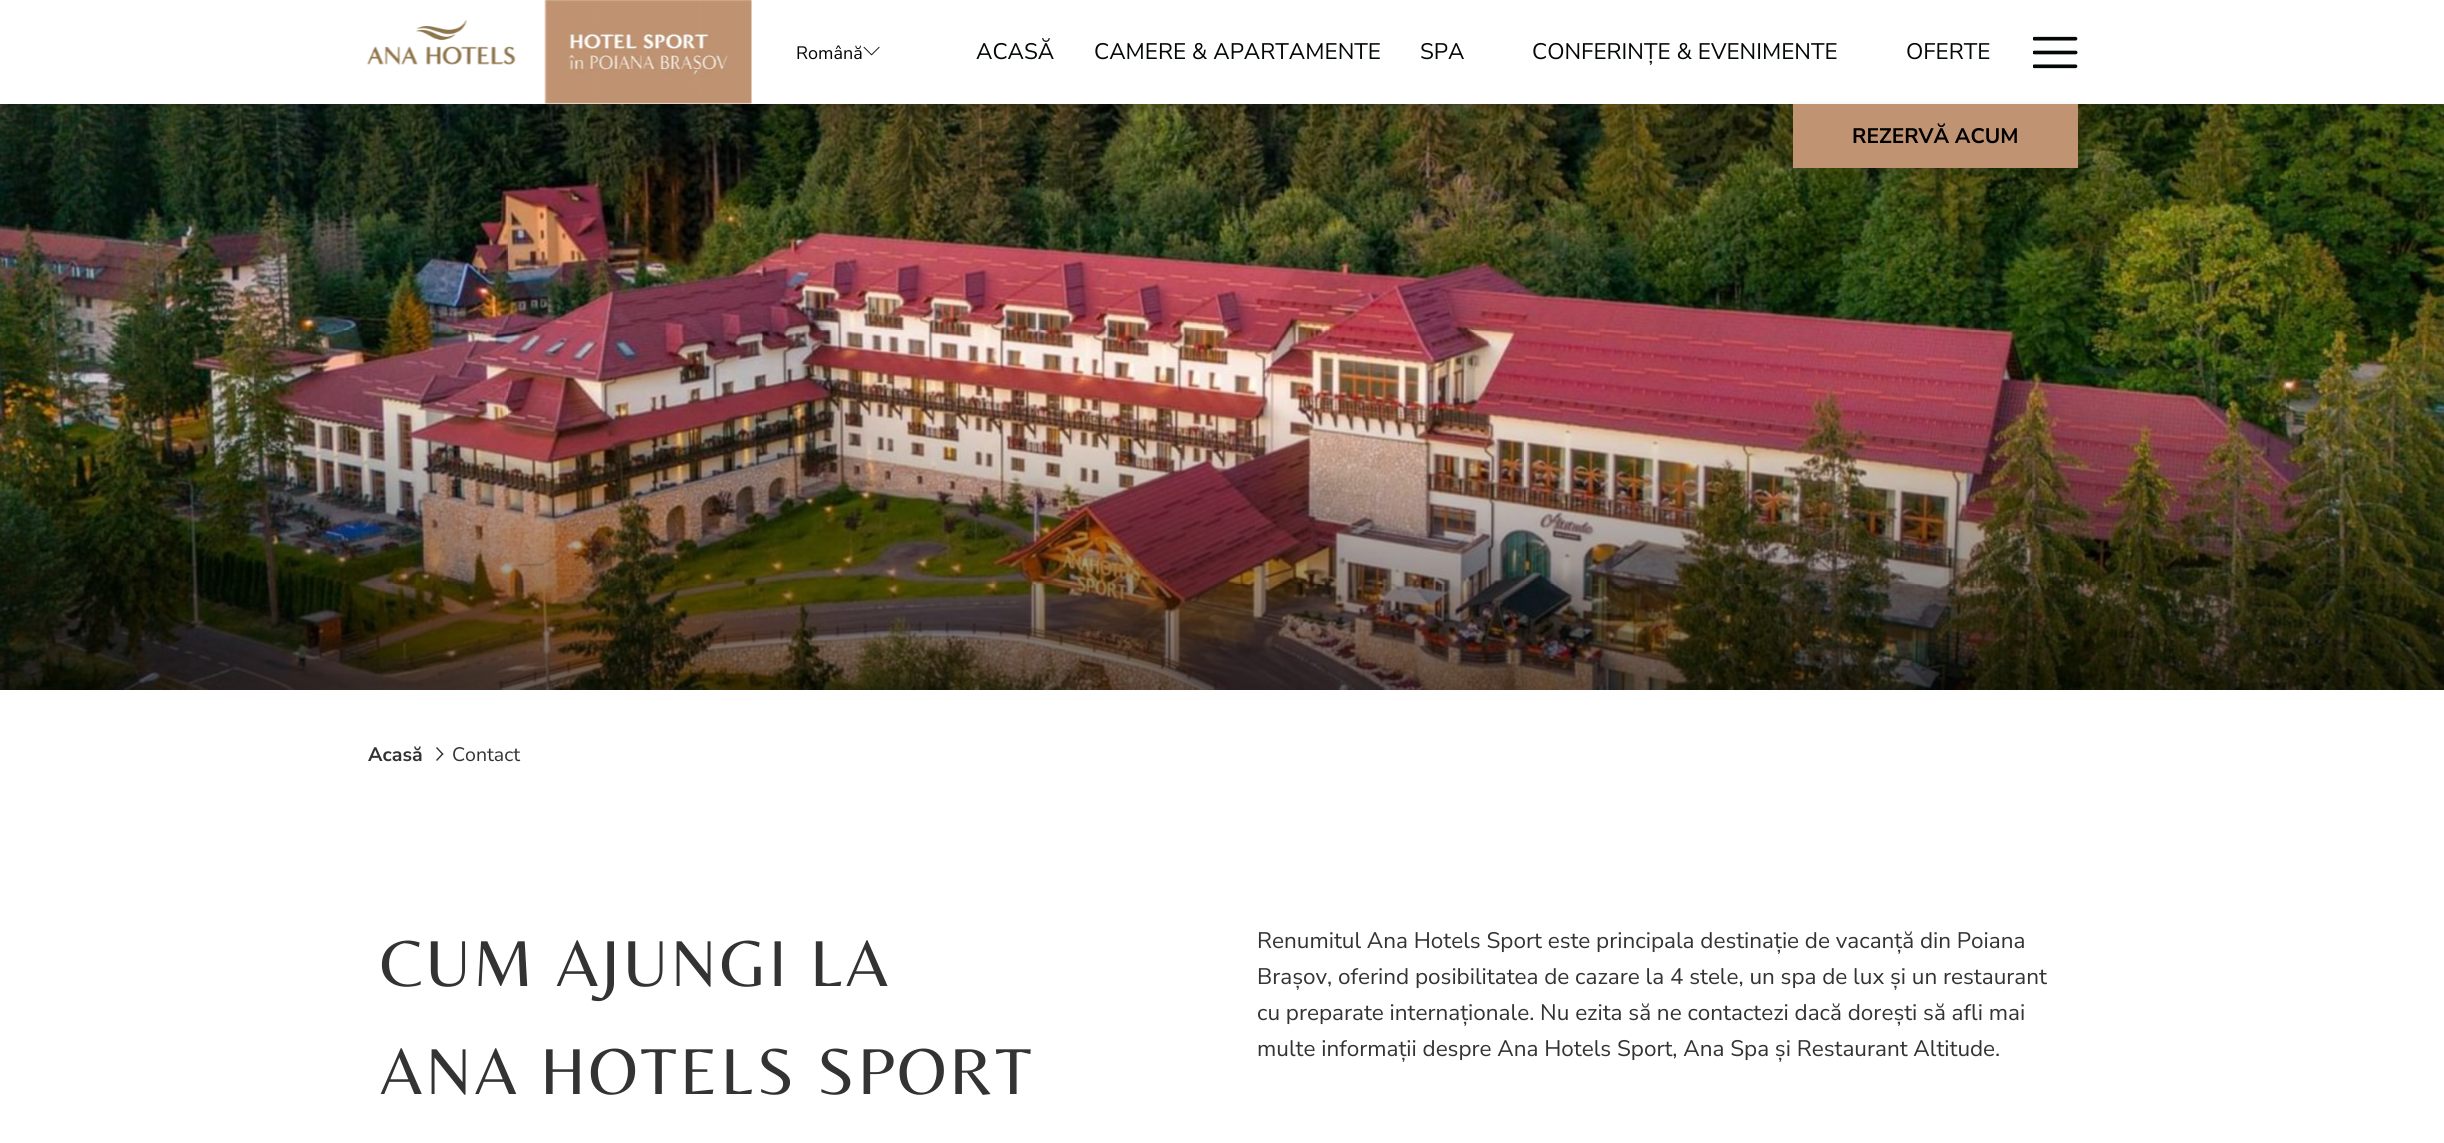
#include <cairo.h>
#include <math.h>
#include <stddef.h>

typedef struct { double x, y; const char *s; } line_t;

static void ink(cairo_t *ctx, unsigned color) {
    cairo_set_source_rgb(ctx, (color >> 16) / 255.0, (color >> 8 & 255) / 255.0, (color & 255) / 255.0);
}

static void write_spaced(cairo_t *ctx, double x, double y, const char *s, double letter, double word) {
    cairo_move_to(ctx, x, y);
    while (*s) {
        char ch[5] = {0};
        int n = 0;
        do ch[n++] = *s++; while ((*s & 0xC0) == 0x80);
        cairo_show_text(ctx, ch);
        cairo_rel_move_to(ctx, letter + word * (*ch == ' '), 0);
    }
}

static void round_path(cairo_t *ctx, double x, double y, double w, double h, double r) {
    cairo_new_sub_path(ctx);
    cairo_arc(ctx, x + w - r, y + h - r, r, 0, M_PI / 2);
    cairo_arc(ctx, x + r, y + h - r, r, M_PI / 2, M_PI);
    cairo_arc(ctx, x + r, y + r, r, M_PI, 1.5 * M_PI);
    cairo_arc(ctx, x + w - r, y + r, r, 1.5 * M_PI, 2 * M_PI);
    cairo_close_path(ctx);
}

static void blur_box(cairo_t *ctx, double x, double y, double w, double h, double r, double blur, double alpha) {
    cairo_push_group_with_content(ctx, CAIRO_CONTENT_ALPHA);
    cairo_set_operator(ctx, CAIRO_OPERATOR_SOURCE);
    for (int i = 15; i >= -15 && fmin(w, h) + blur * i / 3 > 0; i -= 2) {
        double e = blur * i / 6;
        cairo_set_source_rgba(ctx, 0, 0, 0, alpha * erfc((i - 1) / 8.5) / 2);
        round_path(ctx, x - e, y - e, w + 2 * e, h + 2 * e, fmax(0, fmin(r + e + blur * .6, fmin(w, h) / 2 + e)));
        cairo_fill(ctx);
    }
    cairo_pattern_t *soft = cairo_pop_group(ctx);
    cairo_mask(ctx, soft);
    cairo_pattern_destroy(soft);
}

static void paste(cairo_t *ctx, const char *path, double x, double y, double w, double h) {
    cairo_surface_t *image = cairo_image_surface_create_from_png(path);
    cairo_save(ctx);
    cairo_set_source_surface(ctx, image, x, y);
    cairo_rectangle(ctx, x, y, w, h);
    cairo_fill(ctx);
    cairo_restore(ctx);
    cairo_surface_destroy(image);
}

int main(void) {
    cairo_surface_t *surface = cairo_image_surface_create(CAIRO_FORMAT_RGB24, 2444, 1143);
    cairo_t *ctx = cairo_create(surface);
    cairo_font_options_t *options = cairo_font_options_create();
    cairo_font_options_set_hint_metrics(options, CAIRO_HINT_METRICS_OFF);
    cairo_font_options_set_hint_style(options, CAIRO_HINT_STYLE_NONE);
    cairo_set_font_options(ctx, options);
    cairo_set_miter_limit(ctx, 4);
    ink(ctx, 0xFFFFFF);
    cairo_paint(ctx);
    paste(ctx, "media/4.png", 0, 104, 2444, 586);
    ink(ctx, 0x000000);
    blur_box(ctx, 0, 5, 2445, 103, 0, 4.5, 0.15);
    ink(ctx, 0xFFFFFF);
    cairo_rectangle(ctx, 0, 0, 2444, 104);
    cairo_fill(ctx);
    paste(ctx, "media/1.png", 367, 0, 385, 104);
    cairo_select_font_face(ctx, "Nunito Sans", CAIRO_FONT_SLANT_NORMAL, CAIRO_FONT_WEIGHT_NORMAL);
    cairo_set_font_size(ctx, 18);
    ink(ctx, 0x040707);
    cairo_move_to(ctx, 796, 59);
    cairo_show_text(ctx, "Română");
    paste(ctx, "media/2.png", 863, 46, 17, 10);
    cairo_set_font_size(ctx, 22.5);
    {
        static const line_t items[] = {
            {976, 59, "ACASĂ"},
            {1094, 59, "CAMERE & APARTAMENTE"},
            {1420, 59, "SPA"},
            {1532, 59, "CONFERINȚE & EVENIMENTE"},
            {1906, 59, "OFERTE"},
        };
        for (size_t i = 0; i < sizeof items / sizeof *items; i++) {
            cairo_move_to(ctx, items[i].x, items[i].y);
            cairo_show_text(ctx, items[i].s);
        }
    }
    paste(ctx, "media/3.png", 2033, 36, 45, 33);
    ink(ctx, 0x000000);
    blur_box(ctx, 1793, 108, 285, 65, 0, 4.5, 0.15);
    ink(ctx, 0xC09473);
    cairo_rectangle(ctx, 1793, 104, 285, 64);
    cairo_fill(ctx);
    cairo_select_font_face(ctx, "Nunito Sans", CAIRO_FONT_SLANT_NORMAL, CAIRO_FONT_WEIGHT_BOLD);
    cairo_set_font_size(ctx, 21);
    ink(ctx, 0x000000);
    cairo_move_to(ctx, 1852, 143);
    cairo_show_text(ctx, "REZERVĂ ACUM");
    cairo_set_font_size(ctx, 19.5);
    ink(ctx, 0x333333);
    cairo_move_to(ctx, 368, 761);
    cairo_show_text(ctx, "Acasă");
    cairo_new_path(ctx);
    cairo_move_to(ctx, 436, 748);
    cairo_line_to(ctx, 437, 747);
    cairo_line_to(ctx, 443.5, 754);
    cairo_line_to(ctx, 442.5, 755);
    cairo_close_path(ctx);
    cairo_fill(ctx);
    cairo_new_path(ctx);
    cairo_move_to(ctx, 436, 760);
    cairo_line_to(ctx, 442.5, 753);
    cairo_line_to(ctx, 443.5, 754);
    cairo_line_to(ctx, 437, 761);
    cairo_close_path(ctx);
    cairo_fill(ctx);
    cairo_select_font_face(ctx, "Nunito Sans", CAIRO_FONT_SLANT_NORMAL, CAIRO_FONT_WEIGHT_NORMAL);
    cairo_move_to(ctx, 452, 761);
    cairo_show_text(ctx, "Contact");
    cairo_select_font_face(ctx, "Belleza", CAIRO_FONT_SLANT_NORMAL, CAIRO_FONT_WEIGHT_NORMAL);
    cairo_set_font_size(ctx, 67.5);
    write_spaced(ctx, 380, 986, "CUM AJUNGI LA", 3, 0);
    write_spaced(ctx, 380, 1094, "ANA HOTELS SPORT", 3, 0);
    cairo_select_font_face(ctx, "Nunito Sans", CAIRO_FONT_SLANT_NORMAL, CAIRO_FONT_WEIGHT_NORMAL);
    cairo_set_font_size(ctx, 22.5);
    {
        static const line_t items[] = {
            {1257, 948, "Renumitul Ana Hotels Sport este principala destinație de vacanță din Poiana"},
            {1257, 984, "Brașov, oferind posibilitatea de cazare la 4 stele, un spa de lux și un restaurant"},
            {1257, 1020, "cu preparate internaționale. Nu ezita să ne contactezi dacă dorești să afli mai"},
            {1257, 1056, "multe informații despre Ana Hotels Sport, Ana Spa și Restaurant Altitude."},
        };
        for (size_t i = 0; i < sizeof items / sizeof *items; i++) {
            cairo_move_to(ctx, items[i].x, items[i].y);
            cairo_show_text(ctx, items[i].s);
        }
    }
    cairo_surface_write_to_png(surface, "image.png");
    cairo_font_options_destroy(options);
    cairo_destroy(ctx);
    cairo_surface_destroy(surface);
    return 0;
}
